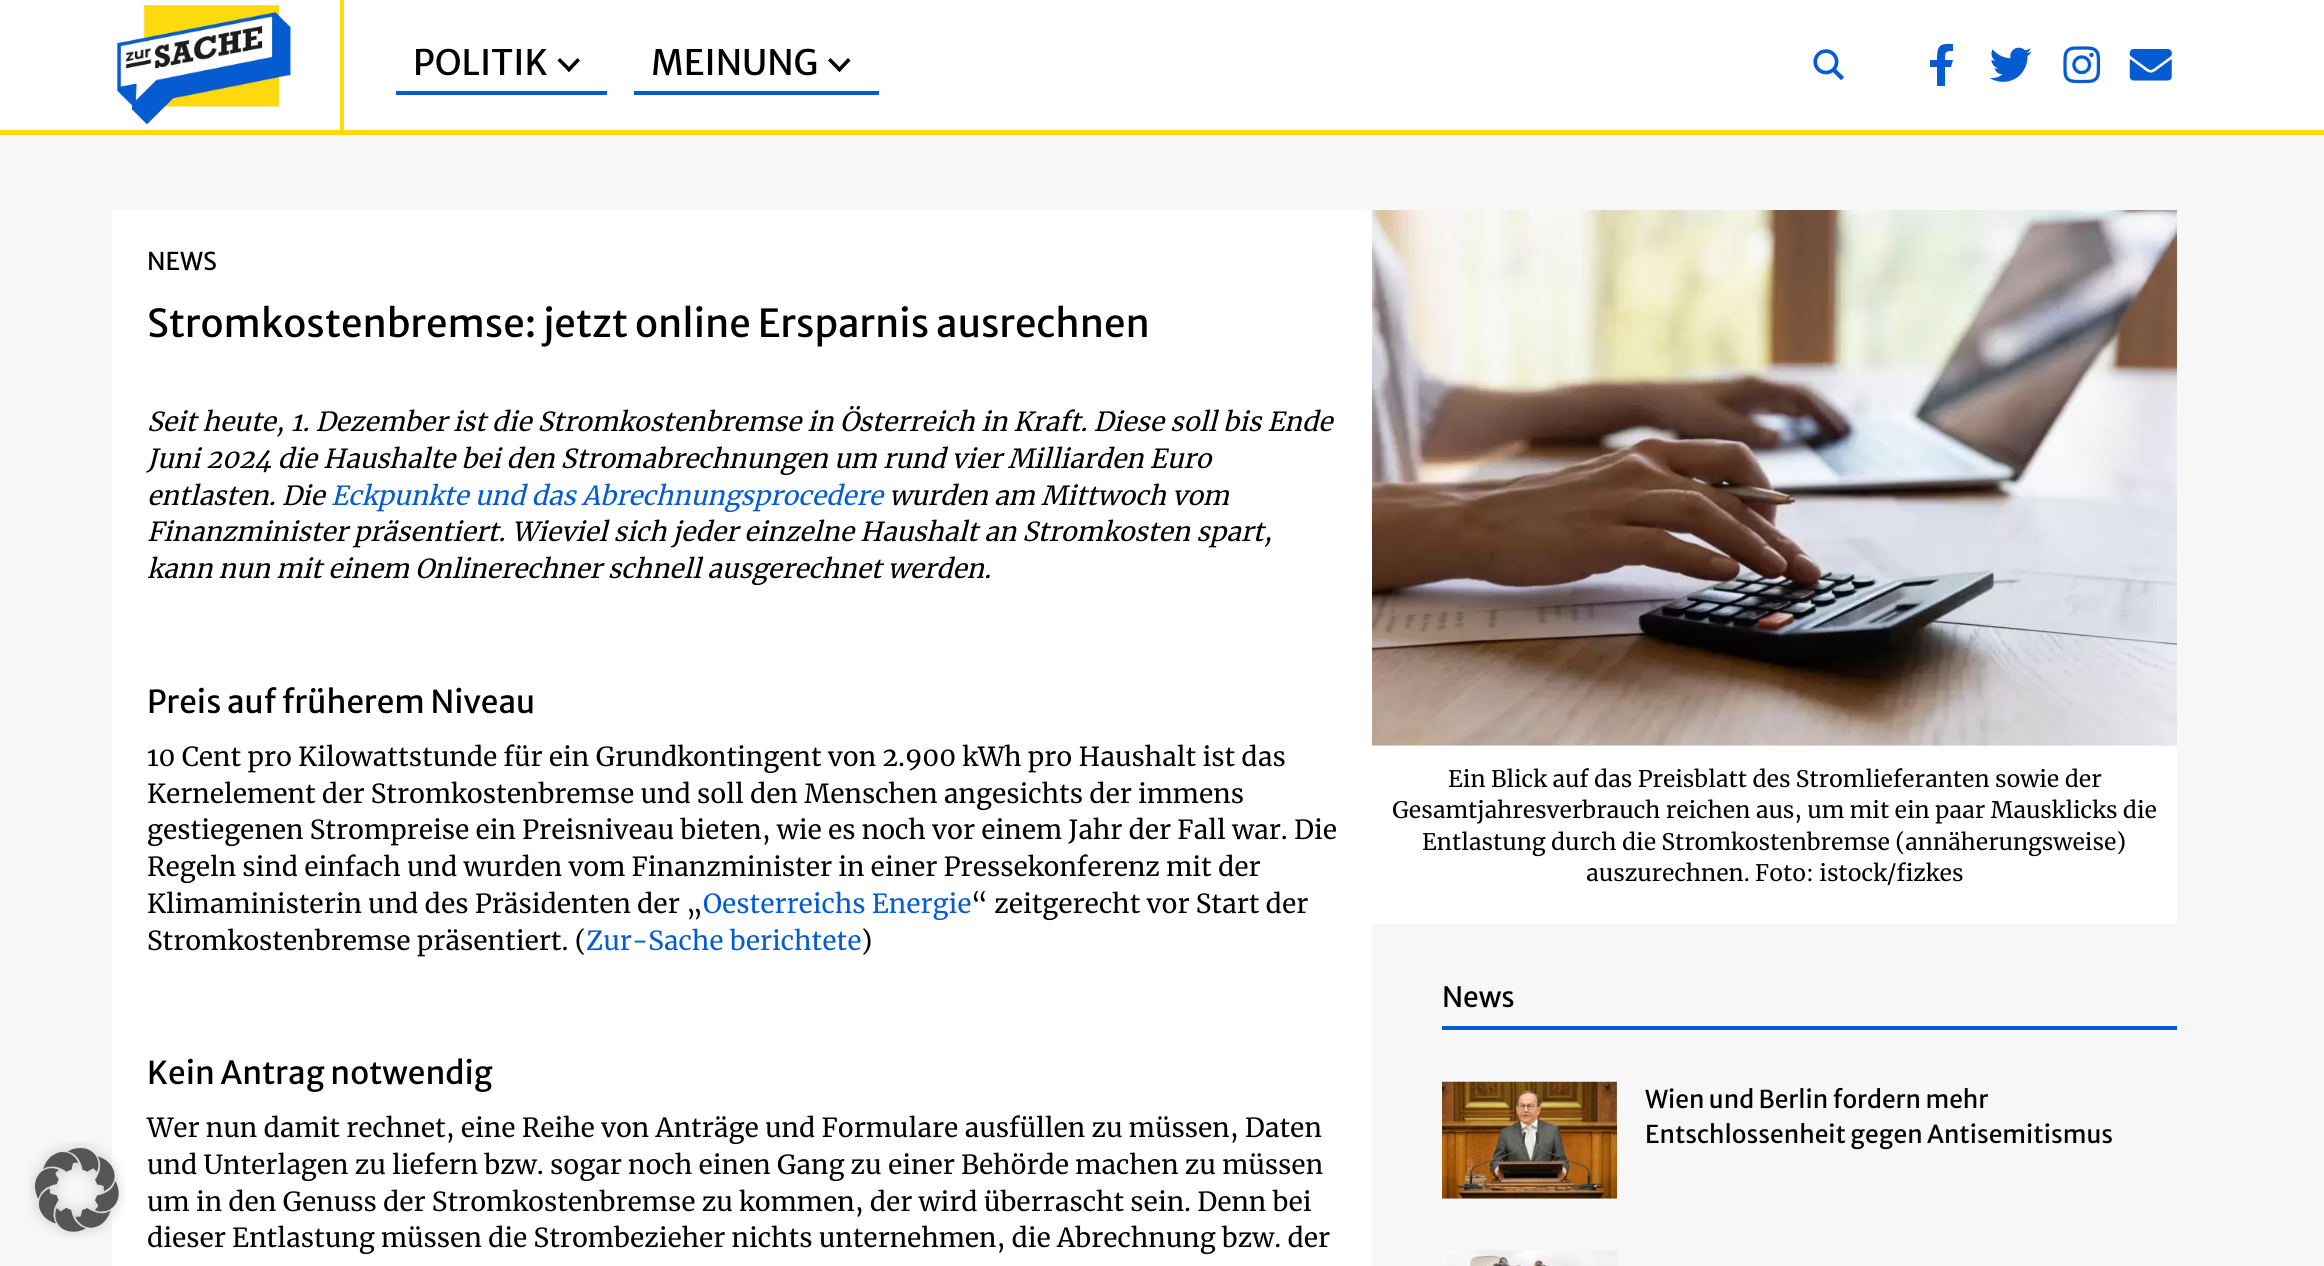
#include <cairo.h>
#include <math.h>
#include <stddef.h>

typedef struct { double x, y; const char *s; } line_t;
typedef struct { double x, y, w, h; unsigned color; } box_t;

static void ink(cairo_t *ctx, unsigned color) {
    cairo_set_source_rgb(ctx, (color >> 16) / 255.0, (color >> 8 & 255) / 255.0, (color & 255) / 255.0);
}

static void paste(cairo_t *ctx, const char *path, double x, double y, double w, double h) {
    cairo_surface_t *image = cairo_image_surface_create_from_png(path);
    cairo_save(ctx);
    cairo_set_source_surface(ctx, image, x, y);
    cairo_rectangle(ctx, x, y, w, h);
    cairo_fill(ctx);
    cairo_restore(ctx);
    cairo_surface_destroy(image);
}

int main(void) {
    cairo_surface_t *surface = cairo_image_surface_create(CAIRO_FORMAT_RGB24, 2324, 1266);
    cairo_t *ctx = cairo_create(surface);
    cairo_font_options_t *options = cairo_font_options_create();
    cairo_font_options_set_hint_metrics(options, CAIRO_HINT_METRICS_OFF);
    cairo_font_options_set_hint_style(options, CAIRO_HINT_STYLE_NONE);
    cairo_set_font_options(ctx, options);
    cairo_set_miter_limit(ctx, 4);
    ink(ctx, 0xF7F7F7);
    cairo_paint(ctx);
    ink(ctx, 0xFFFFFF);
    cairo_rectangle(ctx, 112, 210, 1260, 1056);
    cairo_fill(ctx);
    paste(ctx, "media/1.png", 28, 1141, 98, 98);
    {
        static const box_t items[] = {
            {0, 0, 2324, 130, 0xFFFFFF},
            {0, 130, 2324, 5, 0xFFD810},
            {340, 0, 4, 130, 0xFFD810},
        };
        for (size_t i = 0; i < sizeof items / sizeof *items; i++) {
            ink(ctx, items[i].color);
            cairo_rectangle(ctx, items[i].x, items[i].y, items[i].w, items[i].h);
            cairo_fill(ctx);
        }
    }
    paste(ctx, "media/2.png", 117, 5, 174, 120);
    ink(ctx, 0x055CD0);
    cairo_rectangle(ctx, 396, 91, 211, 4);
    cairo_fill(ctx);
    cairo_select_font_face(ctx, "Merriweather Sans", CAIRO_FONT_SLANT_NORMAL, CAIRO_FONT_WEIGHT_NORMAL);
    cairo_set_font_size(ctx, 35);
    ink(ctx, 0x000000);
    cairo_move_to(ctx, 413, 75);
    cairo_show_text(ctx, "POLITIK");
    cairo_new_path(ctx);
    cairo_move_to(ctx, 577.5, 58);
    cairo_line_to(ctx, 580, 60.5);
    cairo_line_to(ctx, 569, 72);
    cairo_line_to(ctx, 566.5, 69.5);
    cairo_close_path(ctx);
    cairo_fill(ctx);
    cairo_new_path(ctx);
    cairo_move_to(ctx, 560, 58);
    cairo_line_to(ctx, 571.5, 69.5);
    cairo_line_to(ctx, 569, 72);
    cairo_line_to(ctx, 557.5, 60.5);
    cairo_close_path(ctx);
    cairo_fill(ctx);
    ink(ctx, 0x055CD0);
    cairo_rectangle(ctx, 634, 91, 245, 4);
    cairo_fill(ctx);
    ink(ctx, 0x000000);
    cairo_move_to(ctx, 651, 75);
    cairo_show_text(ctx, "MEINUNG");
    cairo_new_path(ctx);
    cairo_move_to(ctx, 848, 58);
    cairo_line_to(ctx, 850.5, 60.5);
    cairo_line_to(ctx, 839.5, 72);
    cairo_line_to(ctx, 837, 69.5);
    cairo_close_path(ctx);
    cairo_fill(ctx);
    cairo_new_path(ctx);
    cairo_move_to(ctx, 830.5, 58);
    cairo_line_to(ctx, 842, 69.5);
    cairo_line_to(ctx, 839.5, 72);
    cairo_line_to(ctx, 828, 60.5);
    cairo_close_path(ctx);
    cairo_fill(ctx);
    paste(ctx, "media/3.png", 1813, 49, 31, 32);
    ink(ctx, 0x055CD0);
    cairo_new_path(ctx);
    cairo_move_to(ctx, 1951, 67);
    cairo_line_to(ctx, 1945, 67);
    cairo_line_to(ctx, 1945, 86);
    cairo_line_to(ctx, 1937, 86);
    cairo_line_to(ctx, 1937, 67);
    cairo_line_to(ctx, 1930, 67);
    cairo_line_to(ctx, 1930, 60);
    cairo_line_to(ctx, 1937, 60);
    cairo_curve_to(ctx, 1937, 46, 1939, 43, 1953, 44);
    cairo_line_to(ctx, 1953, 51);
    cairo_curve_to(ctx, 1945, 51, 1945, 52, 1945, 60);
    cairo_line_to(ctx, 1953, 60);
    cairo_close_path(ctx);
    cairo_fill(ctx);
    paste(ctx, "media/4.png", 1990, 47, 42, 35);
    paste(ctx, "media/5.png", 2063, 46, 38, 38);
    paste(ctx, "media/6.png", 2129, 49, 43, 32);
    cairo_set_font_size(ctx, 24.5);
    ink(ctx, 0x000000);
    cairo_move_to(ctx, 147, 270);
    cairo_show_text(ctx, "NEWS");
    cairo_set_font_size(ctx, 38.5);
    cairo_move_to(ctx, 147, 337);
    cairo_show_text(ctx, "Stromkostenbremse: jetzt online Ersparnis ausrechnen");
    cairo_select_font_face(ctx, "Merriweather", CAIRO_FONT_SLANT_ITALIC, CAIRO_FONT_WEIGHT_NORMAL);
    cairo_set_font_size(ctx, 26.25);
    {
        static const line_t items[] = {
            {147, 431, "Seit heute, 1. Dezember ist die Stromkostenbremse in Österreich in Kraft. Diese soll bis Ende"},
            {147, 468, "Juni 2024 die Haushalte bei den Stromabrechnungen um rund vier Milliarden Euro"},
            {147, 505, "entlasten. Die"},
        };
        for (size_t i = 0; i < sizeof items / sizeof *items; i++) {
            cairo_move_to(ctx, items[i].x, items[i].y);
            cairo_show_text(ctx, items[i].s);
        }
    }
    ink(ctx, 0x055CD0);
    cairo_move_to(ctx, 331, 505);
    cairo_show_text(ctx, "Eckpunkte und das Abrechnungsprocedere");
    ink(ctx, 0x000000);
    {
        static const line_t items[] = {
            {889, 505, "wurden am Mittwoch vom"},
            {147, 541, "Finanzminister präsentiert. Wieviel sich jeder einzelne Haushalt an Stromkosten spart,"},
            {147, 578, "kann nun mit einem Onlinerechner schnell ausgerechnet werden."},
        };
        for (size_t i = 0; i < sizeof items / sizeof *items; i++) {
            cairo_move_to(ctx, items[i].x, items[i].y);
            cairo_show_text(ctx, items[i].s);
        }
    }
    cairo_select_font_face(ctx, "Merriweather Sans", CAIRO_FONT_SLANT_NORMAL, CAIRO_FONT_WEIGHT_NORMAL);
    cairo_set_font_size(ctx, 31.5);
    cairo_move_to(ctx, 147, 713);
    cairo_show_text(ctx, "Preis auf früherem Niveau");
    cairo_select_font_face(ctx, "Merriweather", CAIRO_FONT_SLANT_NORMAL, CAIRO_FONT_WEIGHT_NORMAL);
    cairo_set_font_size(ctx, 26.25);
    {
        static const line_t items[] = {
            {147, 766, "10 Cent pro Kilowattstunde für ein Grundkontingent von 2.900 kWh pro Haushalt ist das"},
            {147, 803, "Kernelement der Stromkostenbremse und soll den Menschen angesichts der immens"},
            {147, 839, "gestiegenen Strompreise ein Preisniveau bieten, wie es noch vor einem Jahr der Fall war. Die"},
            {147, 876, "Regeln sind einfach und wurden vom Finanzminister in einer Pressekonferenz mit der"},
            {147, 913, "Klimaministerin und des Präsidenten der „"},
        };
        for (size_t i = 0; i < sizeof items / sizeof *items; i++) {
            cairo_move_to(ctx, items[i].x, items[i].y);
            cairo_show_text(ctx, items[i].s);
        }
    }
    ink(ctx, 0x055CD0);
    cairo_move_to(ctx, 703, 913);
    cairo_show_text(ctx, "Oesterreichs Energie");
    ink(ctx, 0x000000);
    cairo_move_to(ctx, 971, 913);
    cairo_show_text(ctx, "“ zeitgerecht vor Start der");
    cairo_move_to(ctx, 147, 950);
    cairo_show_text(ctx, "Stromkostenbremse präsentiert. (");
    ink(ctx, 0x055CD0);
    cairo_move_to(ctx, 586, 950);
    cairo_show_text(ctx, "Zur-Sache berichtete");
    ink(ctx, 0x000000);
    cairo_move_to(ctx, 861, 950);
    cairo_show_text(ctx, ")");
    cairo_select_font_face(ctx, "Merriweather Sans", CAIRO_FONT_SLANT_NORMAL, CAIRO_FONT_WEIGHT_NORMAL);
    cairo_set_font_size(ctx, 31.5);
    cairo_move_to(ctx, 147, 1084);
    cairo_show_text(ctx, "Kein Antrag notwendig");
    cairo_select_font_face(ctx, "Merriweather", CAIRO_FONT_SLANT_NORMAL, CAIRO_FONT_WEIGHT_NORMAL);
    cairo_set_font_size(ctx, 26.25);
    {
        static const line_t items[] = {
            {147, 1137, "Wer nun damit rechnet, eine Reihe von Anträge und Formulare ausfüllen zu müssen, Daten"},
            {147, 1174, "und Unterlagen zu liefern bzw. sogar noch einen Gang zu einer Behörde machen zu müssen"},
            {147, 1211, "um in den Genuss der Stromkostenbremse zu kommen, der wird überrascht sein. Denn bei"},
            {147, 1247, "dieser Entlastung müssen die Strombezieher nichts unternehmen, die Abrechnung bzw. der"},
        };
        for (size_t i = 0; i < sizeof items / sizeof *items; i++) {
            cairo_move_to(ctx, items[i].x, items[i].y);
            cairo_show_text(ctx, items[i].s);
        }
    }
    paste(ctx, "media/7.png", 1372, 210, 805, 536);
    ink(ctx, 0xFFFFFF);
    cairo_rectangle(ctx, 1372, 746, 805, 178);
    cairo_fill(ctx);
    cairo_set_font_size(ctx, 22.75);
    ink(ctx, 0x000000);
    {
        static const line_t items[] = {
            {1448, 787, "Ein Blick auf das Preisblatt des Stromlieferanten sowie der"},
            {1392, 818, "Gesamtjahresverbrauch reichen aus, um mit ein paar Mausklicks die"},
            {1422, 850, "Entlastung durch die Stromkostenbremse (annäherungsweise)"},
            {1586, 881, "auszurechnen. Foto: istock/fizkes"},
        };
        for (size_t i = 0; i < sizeof items / sizeof *items; i++) {
            cairo_move_to(ctx, items[i].x, items[i].y);
            cairo_show_text(ctx, items[i].s);
        }
    }
    cairo_select_font_face(ctx, "Merriweather Sans", CAIRO_FONT_SLANT_NORMAL, CAIRO_FONT_WEIGHT_NORMAL);
    cairo_set_font_size(ctx, 28);
    cairo_move_to(ctx, 1442, 1007);
    cairo_show_text(ctx, "News");
    ink(ctx, 0x055CD0);
    cairo_rectangle(ctx, 1442, 1026, 735, 4);
    cairo_fill(ctx);
    paste(ctx, "media/8.png", 1442, 1081, 175, 118);
    cairo_set_font_size(ctx, 24.5);
    ink(ctx, 0x000000);
    cairo_move_to(ctx, 1645, 1108);
    cairo_show_text(ctx, "Wien und Berlin fordern mehr");
    cairo_move_to(ctx, 1645, 1143);
    cairo_show_text(ctx, "Entschlossenheit gegen Antisemitismus");
    paste(ctx, "media/9.png", 1447, 1250, 170, 16);
    cairo_surface_write_to_png(surface, "image.png");
    cairo_font_options_destroy(options);
    cairo_destroy(ctx);
    cairo_surface_destroy(surface);
    return 0;
}
